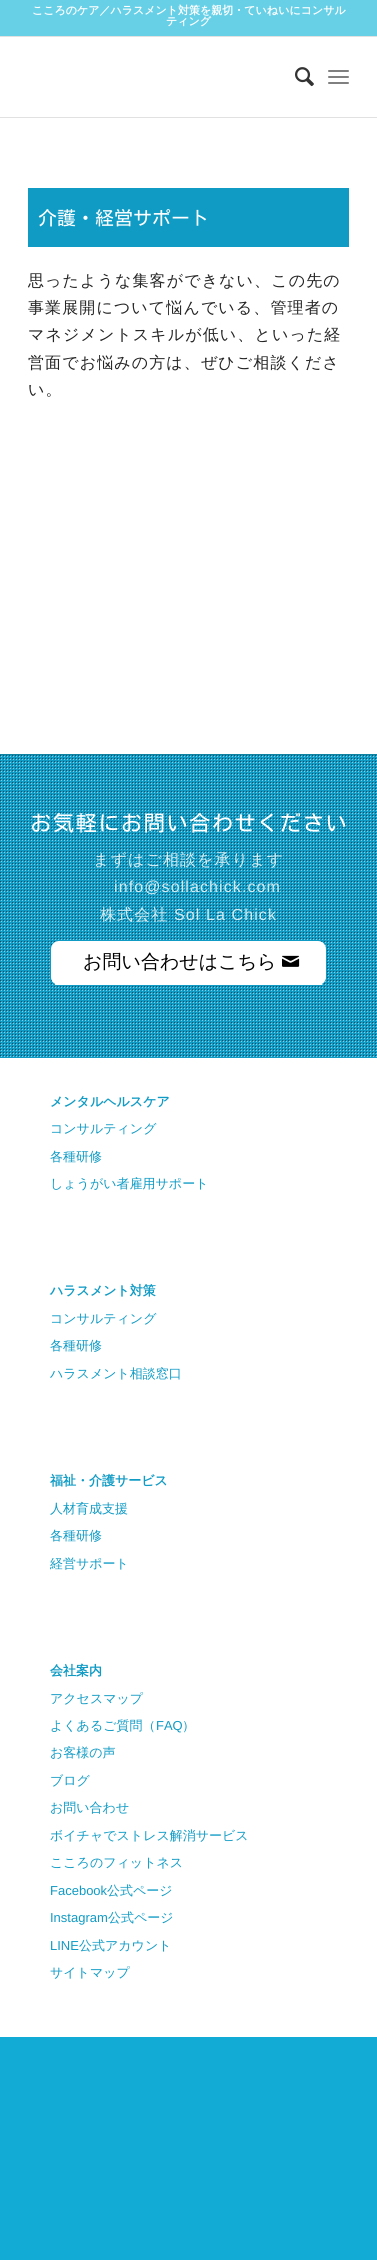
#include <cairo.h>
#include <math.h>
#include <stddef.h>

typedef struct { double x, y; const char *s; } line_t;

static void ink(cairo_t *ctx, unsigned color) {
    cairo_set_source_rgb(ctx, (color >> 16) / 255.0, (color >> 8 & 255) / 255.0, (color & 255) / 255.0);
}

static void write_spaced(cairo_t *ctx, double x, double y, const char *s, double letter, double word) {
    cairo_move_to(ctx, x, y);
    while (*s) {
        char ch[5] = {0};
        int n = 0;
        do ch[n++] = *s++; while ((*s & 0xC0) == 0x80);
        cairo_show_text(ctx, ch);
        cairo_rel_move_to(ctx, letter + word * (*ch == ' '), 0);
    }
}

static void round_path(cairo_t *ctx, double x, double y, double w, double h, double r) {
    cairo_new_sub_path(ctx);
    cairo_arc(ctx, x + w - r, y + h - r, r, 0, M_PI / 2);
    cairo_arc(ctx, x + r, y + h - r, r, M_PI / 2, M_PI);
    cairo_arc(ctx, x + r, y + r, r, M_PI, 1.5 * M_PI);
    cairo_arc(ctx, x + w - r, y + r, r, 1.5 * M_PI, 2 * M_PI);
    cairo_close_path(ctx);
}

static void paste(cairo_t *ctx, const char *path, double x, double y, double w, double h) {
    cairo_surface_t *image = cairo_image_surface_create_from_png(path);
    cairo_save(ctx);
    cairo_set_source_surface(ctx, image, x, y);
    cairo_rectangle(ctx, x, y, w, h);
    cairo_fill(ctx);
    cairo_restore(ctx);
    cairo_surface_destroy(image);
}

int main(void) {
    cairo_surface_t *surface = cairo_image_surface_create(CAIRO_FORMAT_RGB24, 377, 2260);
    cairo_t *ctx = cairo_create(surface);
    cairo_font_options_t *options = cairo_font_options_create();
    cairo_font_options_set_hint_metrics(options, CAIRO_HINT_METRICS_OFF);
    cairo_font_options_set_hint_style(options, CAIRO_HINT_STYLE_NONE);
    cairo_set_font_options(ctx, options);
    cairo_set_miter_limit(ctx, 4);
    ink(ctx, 0x11ABD6);
    cairo_paint(ctx);
    ink(ctx, 0x67D0E7);
    cairo_rectangle(ctx, 0, 0, 377, 36);
    cairo_fill(ctx);
    ink(ctx, 0xE1E1E1);
    cairo_rectangle(ctx, 0, 36, 377, 1);
    cairo_fill(ctx);
    cairo_select_font_face(ctx, "WenQuanYi Zen Hei", CAIRO_FONT_SLANT_NORMAL, CAIRO_FONT_WEIGHT_BOLD);
    cairo_set_font_size(ctx, 11);
    ink(ctx, 0xFFFFFF);
    cairo_move_to(ctx, 32, 14);
    cairo_show_text(ctx, "こころのケア／ハラスメント対策を親切・ていねいにコンサル");
    cairo_move_to(ctx, 166, 25);
    cairo_show_text(ctx, "ティング");
    cairo_rectangle(ctx, 0, 37, 377, 80);
    cairo_fill(ctx);
    ink(ctx, 0xE1E1E1);
    cairo_rectangle(ctx, 0, 117, 377, 1);
    cairo_fill(ctx);
    paste(ctx, "media/1.png", 295, 67, 19, 20);
    ink(ctx, 0x808080);
    round_path(ctx, 328, 76, 21, 2, 1);
    cairo_fill(ctx);
    round_path(ctx, 328, 70, 21, 2, 1);
    cairo_fill(ctx);
    round_path(ctx, 328, 82, 21, 2, 1);
    cairo_fill(ctx);
    ink(ctx, 0xFFFFFF);
    cairo_rectangle(ctx, 0, 118, 377, 636);
    cairo_fill(ctx);
    ink(ctx, 0x109BC5);
    cairo_rectangle(ctx, 28, 188, 321, 59);
    cairo_fill(ctx);
    cairo_select_font_face(ctx, "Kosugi", CAIRO_FONT_SLANT_NORMAL, CAIRO_FONT_WEIGHT_NORMAL);
    cairo_set_font_size(ctx, 19);
    ink(ctx, 0xFFFFFF);
    cairo_move_to(ctx, 38, 225);
    cairo_show_text(ctx, "介護・経営サポート");
    cairo_select_font_face(ctx, "WenQuanYi Zen Hei Medium", CAIRO_FONT_SLANT_NORMAL, CAIRO_FONT_WEIGHT_NORMAL);
    cairo_set_font_size(ctx, 16);
    ink(ctx, 0x242424);
    {
        static const line_t items[] = {
            {28, 286, "思ったような集客ができない、この先の"},
            {28, 313, "事業展開について悩んでいる、管理者の"},
            {28, 340, "マネジメントスキルが低い、といった経"},
            {28, 368, "営面でお悩みの方は、ぜひご相談くださ"},
            {28, 395, "い。"},
        };
        for (size_t i = 0; i < sizeof items / sizeof *items; i++) {
            write_spaced(ctx, items[i].x, items[i].y, items[i].s, 1.1, 0);
        }
    }
    ink(ctx, 0x109BC5);
    cairo_rectangle(ctx, 0, 755, 377, 303);
    cairo_fill(ctx);
    ink(ctx, 0x0F81A1);
    cairo_rectangle(ctx, 0, 754, 377, 1);
    cairo_fill(ctx);
    paste(ctx, "media/2.png", 0, 755, 377, 302);
    cairo_select_font_face(ctx, "Kosugi", CAIRO_FONT_SLANT_NORMAL, CAIRO_FONT_WEIGHT_NORMAL);
    cairo_set_font_size(ctx, 21.6);
    ink(ctx, 0xFFFFFF);
    write_spaced(ctx, 30, 831, "お気軽にお問い合わせください", 1.1, 0);
    cairo_select_font_face(ctx, "WenQuanYi Zen Hei Medium", CAIRO_FONT_SLANT_NORMAL, CAIRO_FONT_WEIGHT_NORMAL);
    cairo_set_font_size(ctx, 16);
    ink(ctx, 0xD2EBF2);
    write_spaced(ctx, 93, 865, "まずはご相談を承ります", 1.1, 0);
    cairo_select_font_face(ctx, "Liberation Sans", CAIRO_FONT_SLANT_NORMAL, CAIRO_FONT_WEIGHT_NORMAL);
    write_spaced(ctx, 114, 892, "info@sollachick.com", 1.1, 0);
    cairo_select_font_face(ctx, "WenQuanYi Zen Hei Medium", CAIRO_FONT_SLANT_NORMAL, CAIRO_FONT_WEIGHT_NORMAL);
    write_spaced(ctx, 100, 920, "株式会社", 1.1, 0);
    cairo_select_font_face(ctx, "Liberation Sans", CAIRO_FONT_SLANT_NORMAL, CAIRO_FONT_WEIGHT_NORMAL);
    write_spaced(ctx, 174, 920, "Sol La Chick", 1.1, 0);
    ink(ctx, 0xFFFFFF);
    round_path(ctx, 51, 941, 275, 44, 8);
    cairo_fill(ctx);
    cairo_rectangle(ctx, 55, 984, 267, 1);
    cairo_fill(ctx);
    cairo_select_font_face(ctx, "WenQuanYi Zen Hei Medium", CAIRO_FONT_SLANT_NORMAL, CAIRO_FONT_WEIGHT_NORMAL);
    cairo_set_font_size(ctx, 19);
    ink(ctx, 0x000000);
    cairo_move_to(ctx, 83, 968);
    cairo_show_text(ctx, "お問い合わせはこちら");
    paste(ctx, "media/3.png", 282, 955, 18, 12);
    ink(ctx, 0xFFFFFF);
    cairo_rectangle(ctx, 0, 1058, 377, 979);
    cairo_fill(ctx);
    cairo_select_font_face(ctx, "WenQuanYi Zen Hei", CAIRO_FONT_SLANT_NORMAL, CAIRO_FONT_WEIGHT_BOLD);
    cairo_set_font_size(ctx, 13);
    ink(ctx, 0x109BC5);
    cairo_move_to(ctx, 50, 1106);
    cairo_show_text(ctx, "メンタルヘルスケア");
    cairo_select_font_face(ctx, "WenQuanYi Zen Hei Medium", CAIRO_FONT_SLANT_NORMAL, CAIRO_FONT_WEIGHT_NORMAL);
    {
        static const line_t items[] = {
            {50, 1133, "コンサルティング"},
            {50, 1161, "各種研修"},
            {50, 1188, "しょうがい者雇用サポート"},
        };
        for (size_t i = 0; i < sizeof items / sizeof *items; i++) {
            cairo_move_to(ctx, items[i].x, items[i].y);
            cairo_show_text(ctx, items[i].s);
        }
    }
    cairo_select_font_face(ctx, "WenQuanYi Zen Hei", CAIRO_FONT_SLANT_NORMAL, CAIRO_FONT_WEIGHT_BOLD);
    cairo_move_to(ctx, 50, 1295);
    cairo_show_text(ctx, "ハラスメント対策");
    cairo_select_font_face(ctx, "WenQuanYi Zen Hei Medium", CAIRO_FONT_SLANT_NORMAL, CAIRO_FONT_WEIGHT_NORMAL);
    {
        static const line_t items[] = {
            {50, 1323, "コンサルティング"},
            {50, 1350, "各種研修"},
            {50, 1378, "ハラスメント相談窓口"},
        };
        for (size_t i = 0; i < sizeof items / sizeof *items; i++) {
            cairo_move_to(ctx, items[i].x, items[i].y);
            cairo_show_text(ctx, items[i].s);
        }
    }
    cairo_select_font_face(ctx, "WenQuanYi Zen Hei", CAIRO_FONT_SLANT_NORMAL, CAIRO_FONT_WEIGHT_BOLD);
    cairo_move_to(ctx, 50, 1485);
    cairo_show_text(ctx, "福祉・介護サービス");
    cairo_select_font_face(ctx, "WenQuanYi Zen Hei Medium", CAIRO_FONT_SLANT_NORMAL, CAIRO_FONT_WEIGHT_NORMAL);
    {
        static const line_t items[] = {
            {50, 1513, "人材育成支援"},
            {50, 1540, "各種研修"},
            {50, 1568, "経営サポート"},
        };
        for (size_t i = 0; i < sizeof items / sizeof *items; i++) {
            cairo_move_to(ctx, items[i].x, items[i].y);
            cairo_show_text(ctx, items[i].s);
        }
    }
    cairo_select_font_face(ctx, "WenQuanYi Zen Hei", CAIRO_FONT_SLANT_NORMAL, CAIRO_FONT_WEIGHT_BOLD);
    cairo_move_to(ctx, 50, 1675);
    cairo_show_text(ctx, "会社案内");
    cairo_select_font_face(ctx, "WenQuanYi Zen Hei Medium", CAIRO_FONT_SLANT_NORMAL, CAIRO_FONT_WEIGHT_NORMAL);
    cairo_move_to(ctx, 50, 1703);
    cairo_show_text(ctx, "アクセスマップ");
    cairo_move_to(ctx, 50, 1730);
    cairo_show_text(ctx, "よくあるご質問（");
    cairo_select_font_face(ctx, "Liberation Sans", CAIRO_FONT_SLANT_NORMAL, CAIRO_FONT_WEIGHT_NORMAL);
    cairo_move_to(ctx, 156, 1730);
    cairo_show_text(ctx, "FAQ");
    cairo_select_font_face(ctx, "WenQuanYi Zen Hei Medium", CAIRO_FONT_SLANT_NORMAL, CAIRO_FONT_WEIGHT_NORMAL);
    {
        static const line_t items[] = {
            {182, 1730, "）"},
            {50, 1757, "お客様の声"},
            {50, 1785, "ブログ"},
            {50, 1812, "お問い合わせ"},
            {50, 1840, "ボイチャでストレス解消サービス"},
            {50, 1867, "こころのフィットネス"},
        };
        for (size_t i = 0; i < sizeof items / sizeof *items; i++) {
            cairo_move_to(ctx, items[i].x, items[i].y);
            cairo_show_text(ctx, items[i].s);
        }
    }
    cairo_select_font_face(ctx, "Liberation Sans", CAIRO_FONT_SLANT_NORMAL, CAIRO_FONT_WEIGHT_NORMAL);
    cairo_move_to(ctx, 50, 1895);
    cairo_show_text(ctx, "Facebook");
    cairo_select_font_face(ctx, "WenQuanYi Zen Hei Medium", CAIRO_FONT_SLANT_NORMAL, CAIRO_FONT_WEIGHT_NORMAL);
    cairo_move_to(ctx, 107, 1895);
    cairo_show_text(ctx, "公式ページ");
    cairo_select_font_face(ctx, "Liberation Sans", CAIRO_FONT_SLANT_NORMAL, CAIRO_FONT_WEIGHT_NORMAL);
    cairo_move_to(ctx, 50, 1922);
    cairo_show_text(ctx, "Instagram");
    cairo_select_font_face(ctx, "WenQuanYi Zen Hei Medium", CAIRO_FONT_SLANT_NORMAL, CAIRO_FONT_WEIGHT_NORMAL);
    cairo_move_to(ctx, 108, 1922);
    cairo_show_text(ctx, "公式ページ");
    cairo_select_font_face(ctx, "Liberation Sans", CAIRO_FONT_SLANT_NORMAL, CAIRO_FONT_WEIGHT_NORMAL);
    cairo_move_to(ctx, 50, 1950);
    cairo_show_text(ctx, "LINE");
    cairo_select_font_face(ctx, "WenQuanYi Zen Hei Medium", CAIRO_FONT_SLANT_NORMAL, CAIRO_FONT_WEIGHT_NORMAL);
    cairo_move_to(ctx, 79, 1950);
    cairo_show_text(ctx, "公式アカウント");
    cairo_move_to(ctx, 50, 1977);
    cairo_show_text(ctx, "サイトマップ");
    cairo_surface_write_to_png(surface, "image.png");
    cairo_font_options_destroy(options);
    cairo_destroy(ctx);
    cairo_surface_destroy(surface);
    return 0;
}
